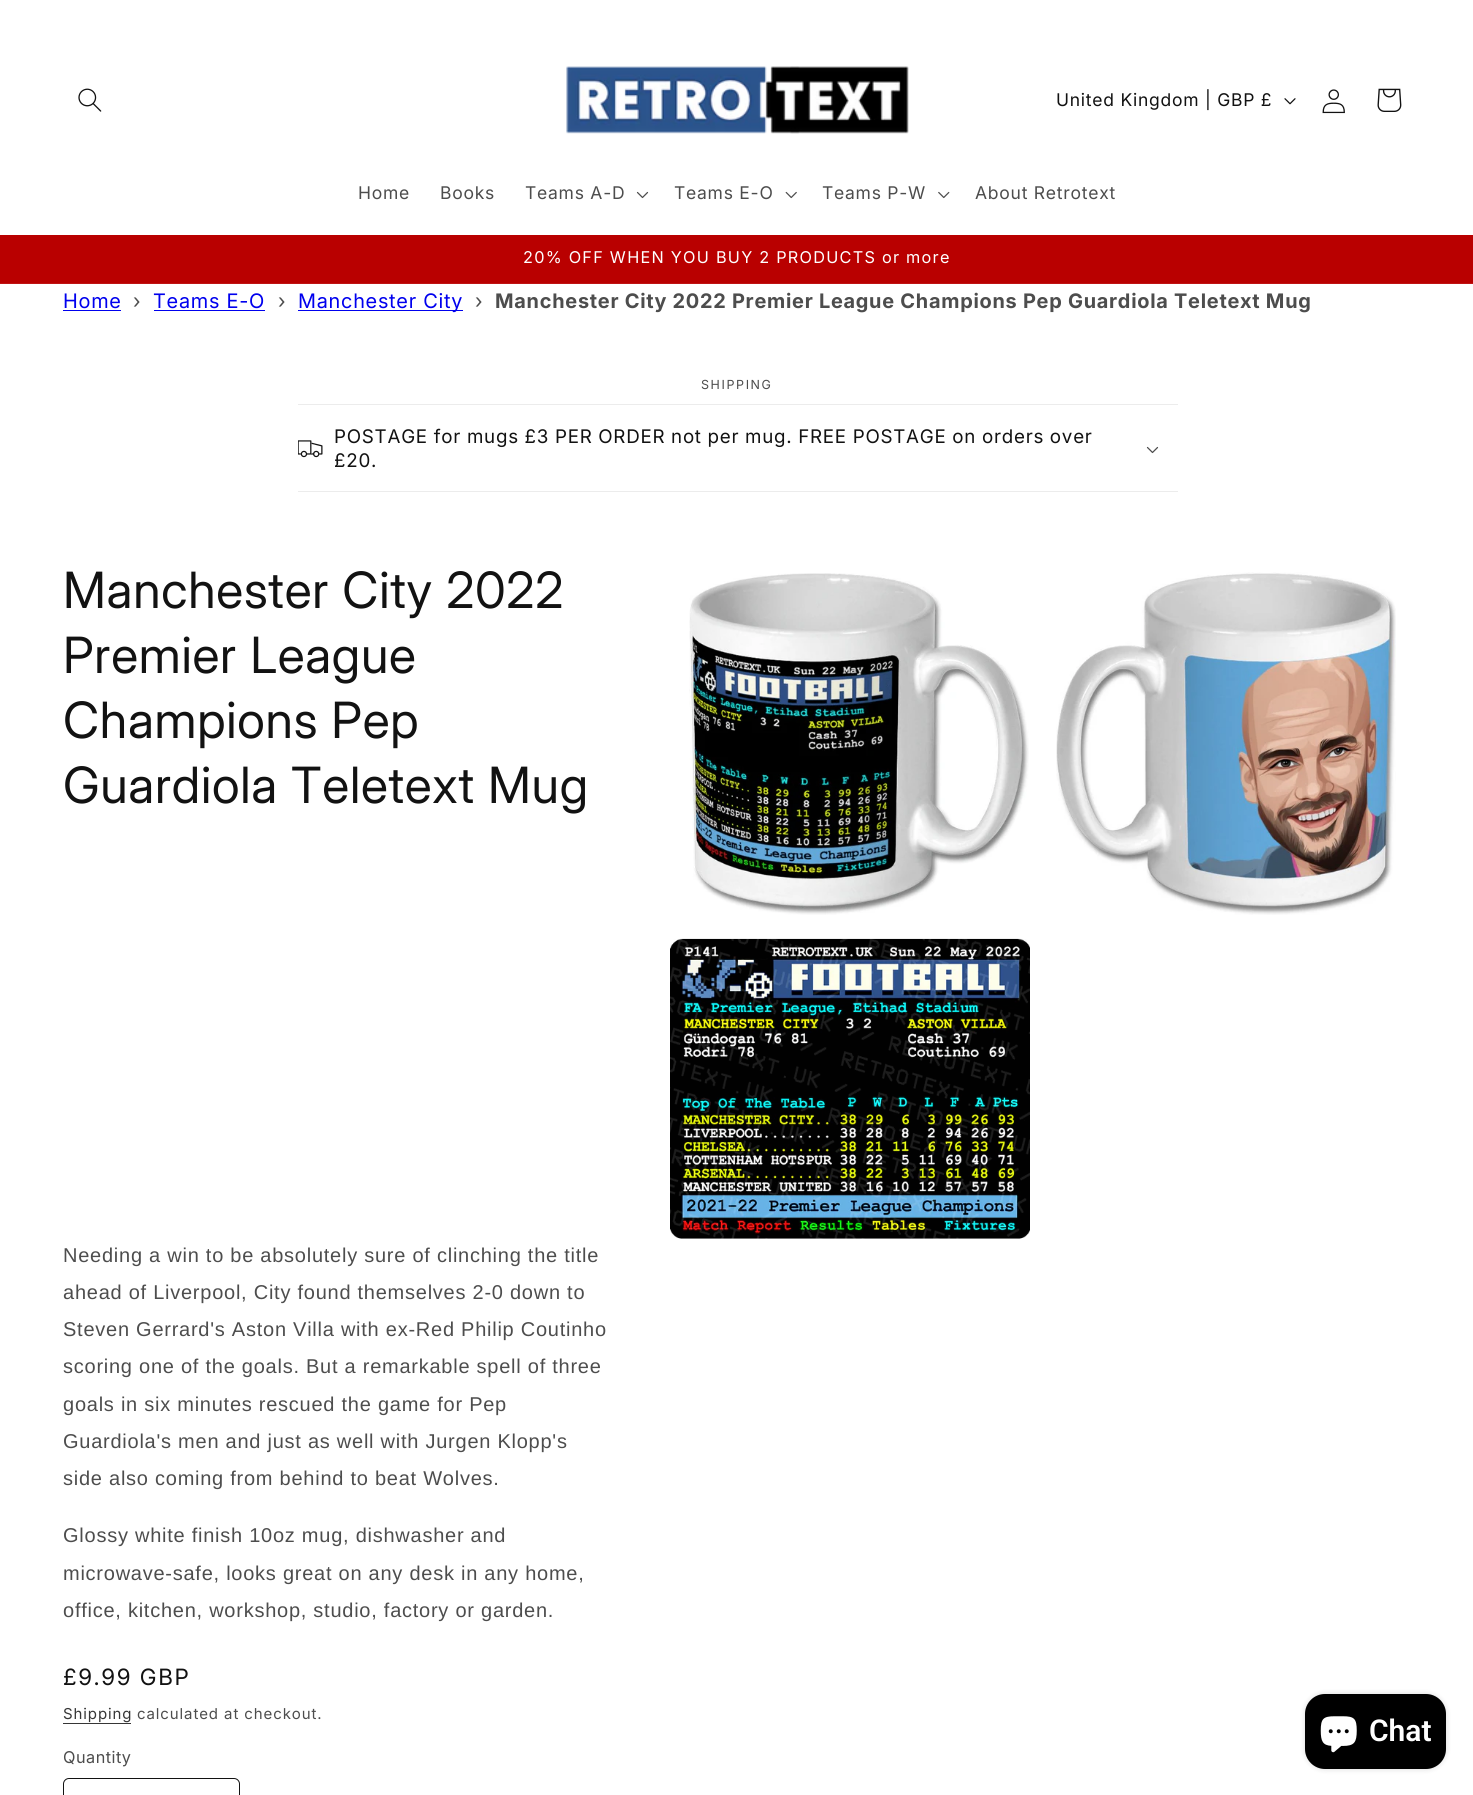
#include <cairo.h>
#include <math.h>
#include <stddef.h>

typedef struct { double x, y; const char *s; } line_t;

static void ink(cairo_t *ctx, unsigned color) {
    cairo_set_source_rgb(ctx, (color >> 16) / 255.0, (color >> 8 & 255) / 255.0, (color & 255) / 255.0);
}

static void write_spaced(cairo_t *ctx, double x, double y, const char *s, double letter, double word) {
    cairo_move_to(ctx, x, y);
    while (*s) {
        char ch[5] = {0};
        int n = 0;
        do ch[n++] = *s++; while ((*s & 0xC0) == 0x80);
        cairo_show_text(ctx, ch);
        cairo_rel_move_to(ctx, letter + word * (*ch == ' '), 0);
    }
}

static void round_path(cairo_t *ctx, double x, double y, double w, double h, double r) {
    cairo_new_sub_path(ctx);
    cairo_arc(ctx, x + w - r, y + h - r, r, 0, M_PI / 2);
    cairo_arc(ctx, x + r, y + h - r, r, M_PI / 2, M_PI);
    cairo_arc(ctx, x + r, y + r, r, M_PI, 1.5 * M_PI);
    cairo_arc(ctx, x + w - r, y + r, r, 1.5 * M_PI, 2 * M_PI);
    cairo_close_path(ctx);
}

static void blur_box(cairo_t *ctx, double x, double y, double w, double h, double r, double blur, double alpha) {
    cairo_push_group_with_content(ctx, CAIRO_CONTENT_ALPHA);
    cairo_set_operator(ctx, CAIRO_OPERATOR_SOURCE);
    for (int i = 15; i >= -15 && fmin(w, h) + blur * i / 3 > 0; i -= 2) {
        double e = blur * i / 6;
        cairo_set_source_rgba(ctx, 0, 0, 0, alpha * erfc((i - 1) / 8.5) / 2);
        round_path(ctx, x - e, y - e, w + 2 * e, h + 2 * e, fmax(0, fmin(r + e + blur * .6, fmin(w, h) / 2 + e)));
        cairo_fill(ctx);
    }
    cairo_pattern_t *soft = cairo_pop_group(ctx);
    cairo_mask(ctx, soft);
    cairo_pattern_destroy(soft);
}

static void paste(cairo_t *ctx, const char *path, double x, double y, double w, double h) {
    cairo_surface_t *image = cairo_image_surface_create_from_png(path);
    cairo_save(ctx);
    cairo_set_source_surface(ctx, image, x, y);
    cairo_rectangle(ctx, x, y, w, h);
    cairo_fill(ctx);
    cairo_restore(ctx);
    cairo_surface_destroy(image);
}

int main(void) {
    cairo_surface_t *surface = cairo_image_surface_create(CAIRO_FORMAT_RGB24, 1473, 1795);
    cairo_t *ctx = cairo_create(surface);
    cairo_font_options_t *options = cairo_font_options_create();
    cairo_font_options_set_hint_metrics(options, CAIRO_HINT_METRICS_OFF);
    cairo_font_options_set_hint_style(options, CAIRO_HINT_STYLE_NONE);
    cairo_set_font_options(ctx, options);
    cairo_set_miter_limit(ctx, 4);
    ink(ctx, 0xFFFFFF);
    cairo_paint(ctx);
    paste(ctx, "media/1.png", 78, 88, 24, 24);
    paste(ctx, "media/2.png", 566, 66, 343, 68);
    cairo_select_font_face(ctx, "Inter", CAIRO_FONT_SLANT_NORMAL, CAIRO_FONT_WEIGHT_NORMAL);
    cairo_set_font_size(ctx, 17.5);
    ink(ctx, 0x121212);
    write_spaced(ctx, 1056, 106, "United Kingdom | GBP £", 0.75, 0);
    paste(ctx, "media/3.png", 1284, 98, 12, 7);
    paste(ctx, "media/4.png", 1322, 89, 23, 25);
    paste(ctx, "media/5.png", 1377, 88, 25, 24);
    ink(ctx, 0x4D4D4D);
    {
        static const line_t items[] = {
            {358, 199, "Home"},
            {440, 199, "Books"},
            {525, 199, "Teams A-D"},
        };
        for (size_t i = 0; i < sizeof items / sizeof *items; i++) {
            write_spaced(ctx, items[i].x, items[i].y, items[i].s, 0.75, 0);
        }
    }
    paste(ctx, "media/6.png", 636, 191, 13, 8);
    write_spaced(ctx, 674, 199, "Teams E-O", 0.75, 0);
    paste(ctx, "media/7.png", 785, 191, 12, 8);
    write_spaced(ctx, 822, 199, "Teams P-W", 0.75, 0);
    paste(ctx, "media/8.png", 938, 191, 12, 8);
    write_spaced(ctx, 975, 199, "About Retrotext", 0.75, 0);
    ink(ctx, 0xB90000);
    cairo_rectangle(ctx, 0, 235, 1473, 48);
    cairo_fill(ctx);
    ink(ctx, 0xBF1414);
    cairo_rectangle(ctx, 0, 283, 1473, 1);
    cairo_fill(ctx);
    cairo_set_font_size(ctx, 16.25);
    ink(ctx, 0xFFFFFF);
    write_spaced(ctx, 523, 263, "20% OFF WHEN YOU BUY 2 PRODUCTS or more", 1.25, 0);
    cairo_select_font_face(ctx, "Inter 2", CAIRO_FONT_SLANT_NORMAL, CAIRO_FONT_WEIGHT_NORMAL);
    cairo_set_font_size(ctx, 20);
    ink(ctx, 0x0000EE);
    write_spaced(ctx, 63, 308, "Home", 0.75, 0);
    cairo_rectangle(ctx, 63, 310, 58, 1);
    cairo_fill(ctx);
    ink(ctx, 0x4D4D4D);
    write_spaced(ctx, 133, 308, "›", 0.75, 0);
    ink(ctx, 0x0000EE);
    write_spaced(ctx, 153, 308, "Teams E-O", 0.75, 0);
    cairo_rectangle(ctx, 154, 310, 111, 1);
    cairo_fill(ctx);
    ink(ctx, 0x4D4D4D);
    write_spaced(ctx, 278, 308, "›", 0.75, 0);
    ink(ctx, 0x0000EE);
    cairo_rectangle(ctx, 298, 310, 165, 1);
    cairo_fill(ctx);
    write_spaced(ctx, 298, 308, "Manchester City", 0.75, 0);
    ink(ctx, 0x4D4D4D);
    write_spaced(ctx, 475, 308, "›", 0.75, 0);
    cairo_select_font_face(ctx, "Inter", CAIRO_FONT_SLANT_NORMAL, CAIRO_FONT_WEIGHT_BOLD);
    write_spaced(ctx, 495, 308, "Manchester City 2022 Premier League Champions Pep Guardiola Teletext Mug", 0.75, 0);
    cairo_select_font_face(ctx, "Inter", CAIRO_FONT_SLANT_NORMAL, CAIRO_FONT_WEIGHT_NORMAL);
    cairo_set_font_size(ctx, 12.5);
    write_spaced(ctx, 701, 389, "SHIPPING", 1.6, 0);
    ink(ctx, 0xECECEC);
    cairo_rectangle(ctx, 298, 404, 880, 1);
    cairo_fill(ctx);
    cairo_rectangle(ctx, 298, 491, 880, 1);
    cairo_fill(ctx);
    paste(ctx, "media/9.png", 298, 440, 25, 18);
    cairo_set_font_size(ctx, 18.75);
    ink(ctx, 0x121212);
    write_spaced(ctx, 334, 443, "POSTAGE for mugs £3 PER ORDER not per mug. FREE POSTAGE on orders over", 0.75, -0.25);
    write_spaced(ctx, 334, 467, "£20.", 0.75, 0);
    paste(ctx, "media/6.png", 1146, 446, 13, 8);
    cairo_select_font_face(ctx, "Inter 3", CAIRO_FONT_SLANT_NORMAL, CAIRO_FONT_WEIGHT_NORMAL);
    cairo_set_font_size(ctx, 50);
    {
        static const line_t items[] = {
            {63, 608, "Manchester City 2022"},
            {63, 673, "Premier League"},
            {63, 738, "Champions Pep"},
            {63, 803, "Guardiola Teletext Mug"},
        };
        for (size_t i = 0; i < sizeof items / sizeof *items; i++) {
            write_spaced(ctx, items[i].x, items[i].y, items[i].s, 0.75, 0);
        }
    }
    cairo_select_font_face(ctx, "Liberation Sans", CAIRO_FONT_SLANT_NORMAL, CAIRO_FONT_WEIGHT_NORMAL);
    cairo_set_font_size(ctx, 20);
    ink(ctx, 0x4D4D4D);
    {
        static const line_t items[] = {
            {63, 1262, "Needing a win to be absolutely sure of clinching the title"},
            {63, 1299, "ahead of Liverpool, City found themselves 2-0 down to"},
            {63, 1336, "Steven Gerrard's Aston Villa with ex-Red Philip Coutinho"},
            {63, 1373, "scoring one of the goals. But a remarkable spell of three"},
            {63, 1411, "goals in six minutes rescued the game for Pep"},
            {63, 1448, "Guardiola's men and just as well with Jurgen Klopp's"},
            {63, 1485, "side also coming from behind to beat Wolves."},
            {63, 1542, "Glossy white finish 10oz mug, dishwasher and"},
            {63, 1580, "microwave-safe, looks great on any desk in any home,"},
            {63, 1617, "office, kitchen, workshop, studio, factory or garden."},
        };
        for (size_t i = 0; i < sizeof items / sizeof *items; i++) {
            write_spaced(ctx, items[i].x, items[i].y, items[i].s, 0.75, 0);
        }
    }
    cairo_select_font_face(ctx, "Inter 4", CAIRO_FONT_SLANT_NORMAL, CAIRO_FONT_WEIGHT_NORMAL);
    cairo_set_font_size(ctx, 22.5);
    ink(ctx, 0x121212);
    write_spaced(ctx, 63, 1685, "£9.99 GBP", 1.6, 0);
    cairo_select_font_face(ctx, "Inter", CAIRO_FONT_SLANT_NORMAL, CAIRO_FONT_WEIGHT_NORMAL);
    cairo_set_font_size(ctx, 15);
    ink(ctx, 0x363636);
    write_spaced(ctx, 63, 1719, "Shipping", 0.9, 0);
    cairo_rectangle(ctx, 63, 1723, 68, 1);
    cairo_fill(ctx);
    ink(ctx, 0x4D4D4D);
    write_spaced(ctx, 137, 1719, "calculated at checkout.", 0.9, 0);
    cairo_set_font_size(ctx, 16.25);
    write_spaced(ctx, 63, 1763, "Quantity", 0.5, 0);
    round_path(ctx, 63.5, 1778.5, 176, 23, 5.5);
    ink(ctx, 0x121212);
    cairo_set_line_width(ctx, 1);
    cairo_stroke(ctx);
    paste(ctx, "media/10.png", 689, 573, 340, 342);
    paste(ctx, "media/11.png", 1056, 572, 340, 343);
    paste(ctx, "media/12.png", 670, 938, 360, 301);
    ink(ctx, 0x000000);
    blur_box(ctx, 1305, 1694, 141, 75, 20, 3, 0.15);
    ink(ctx, 0x000000);
    round_path(ctx, 1305, 1694, 141, 75, 20);
    cairo_fill(ctx);
    paste(ctx, "media/13.png", 1320, 1716, 37, 37);
    cairo_select_font_face(ctx, "Roboto SemiBold", CAIRO_FONT_SLANT_NORMAL, CAIRO_FONT_WEIGHT_NORMAL);
    cairo_set_font_size(ctx, 30);
    ink(ctx, 0xFFFFFF);
    cairo_move_to(ctx, 1369, 1741);
    cairo_show_text(ctx, "Chat");
    cairo_surface_write_to_png(surface, "image.png");
    cairo_font_options_destroy(options);
    cairo_destroy(ctx);
    cairo_surface_destroy(surface);
    return 0;
}
